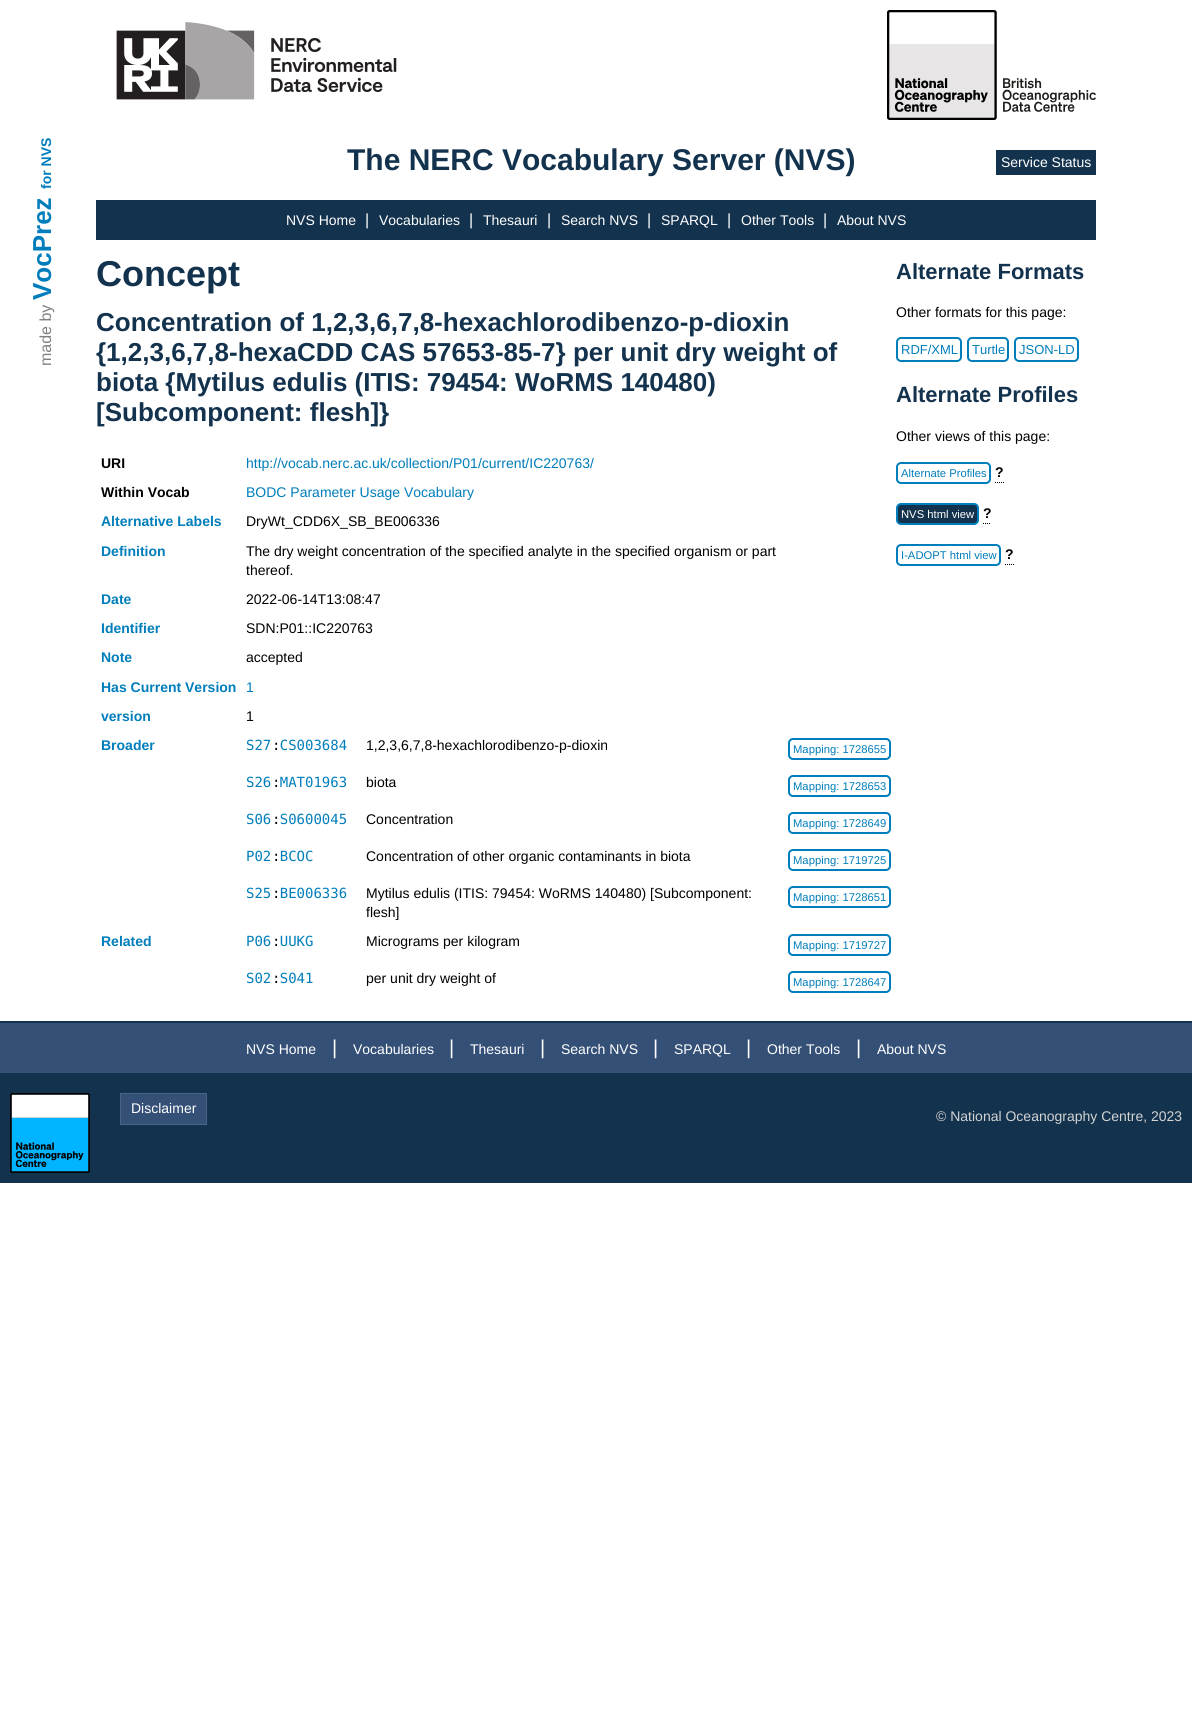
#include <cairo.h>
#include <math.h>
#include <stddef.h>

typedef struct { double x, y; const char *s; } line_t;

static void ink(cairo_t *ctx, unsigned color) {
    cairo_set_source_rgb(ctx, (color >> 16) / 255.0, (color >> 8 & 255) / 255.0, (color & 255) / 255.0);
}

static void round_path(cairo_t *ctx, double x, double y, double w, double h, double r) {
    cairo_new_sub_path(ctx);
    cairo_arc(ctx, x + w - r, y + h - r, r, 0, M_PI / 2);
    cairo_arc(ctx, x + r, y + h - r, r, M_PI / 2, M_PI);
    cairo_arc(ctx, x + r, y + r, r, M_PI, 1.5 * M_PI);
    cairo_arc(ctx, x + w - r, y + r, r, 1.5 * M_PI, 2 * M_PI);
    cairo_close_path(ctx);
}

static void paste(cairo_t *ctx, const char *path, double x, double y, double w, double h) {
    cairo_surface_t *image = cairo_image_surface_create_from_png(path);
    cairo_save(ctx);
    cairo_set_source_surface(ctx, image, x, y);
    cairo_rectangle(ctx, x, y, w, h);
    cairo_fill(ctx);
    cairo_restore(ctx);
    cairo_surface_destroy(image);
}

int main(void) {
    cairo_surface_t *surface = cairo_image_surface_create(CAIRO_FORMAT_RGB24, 1192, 1721);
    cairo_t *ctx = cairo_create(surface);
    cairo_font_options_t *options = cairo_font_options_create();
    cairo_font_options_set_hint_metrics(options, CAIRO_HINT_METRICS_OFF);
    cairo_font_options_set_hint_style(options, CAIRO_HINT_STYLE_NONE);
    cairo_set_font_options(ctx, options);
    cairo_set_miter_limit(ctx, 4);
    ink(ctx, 0xFFFFFF);
    cairo_paint(ctx);
    cairo_select_font_face(ctx, "Liberation Sans", CAIRO_FONT_SLANT_NORMAL, CAIRO_FONT_WEIGHT_BOLD);
    cairo_set_font_size(ctx, 14);
    ink(ctx, 0x007DBB);
    cairo_save(ctx);
    cairo_translate(ctx, 51, 189);
    cairo_rotate(ctx, -90 * M_PI / 180);
    cairo_move_to(ctx, 0, 0);
    cairo_show_text(ctx, "for NVS");
    cairo_restore(ctx);
    cairo_set_font_size(ctx, 26);
    cairo_save(ctx);
    cairo_translate(ctx, 51, 300);
    cairo_rotate(ctx, -90 * M_PI / 180);
    cairo_move_to(ctx, 0, 0);
    cairo_show_text(ctx, "VocPrez");
    cairo_restore(ctx);
    cairo_select_font_face(ctx, "Liberation Sans", CAIRO_FONT_SLANT_NORMAL, CAIRO_FONT_WEIGHT_NORMAL);
    cairo_set_font_size(ctx, 16);
    ink(ctx, 0x808080);
    cairo_save(ctx);
    cairo_translate(ctx, 51, 366);
    cairo_rotate(ctx, -90 * M_PI / 180);
    cairo_move_to(ctx, 0, 0);
    cairo_show_text(ctx, "made by");
    cairo_restore(ctx);
    paste(ctx, "media/1.png", 116, 22, 281, 78);
    paste(ctx, "media/2.png", 887, 10, 209, 110);
    cairo_select_font_face(ctx, "Liberation Sans", CAIRO_FONT_SLANT_NORMAL, CAIRO_FONT_WEIGHT_BOLD);
    cairo_set_font_size(ctx, 30);
    ink(ctx, 0x13324D);
    cairo_move_to(ctx, 347, 170);
    cairo_show_text(ctx, "The NERC Vocabulary Server (NVS)");
    cairo_rectangle(ctx, 996, 150, 100, 25);
    cairo_fill(ctx);
    cairo_select_font_face(ctx, "Liberation Sans", CAIRO_FONT_SLANT_NORMAL, CAIRO_FONT_WEIGHT_NORMAL);
    cairo_set_font_size(ctx, 14);
    ink(ctx, 0xFFFFFF);
    cairo_move_to(ctx, 1001, 167);
    cairo_show_text(ctx, "Service Status");
    ink(ctx, 0x13324D);
    cairo_rectangle(ctx, 96, 200, 1000, 40);
    cairo_fill(ctx);
    ink(ctx, 0xFFFFFF);
    cairo_move_to(ctx, 286, 225);
    cairo_show_text(ctx, "NVS Home");
    cairo_set_font_size(ctx, 16);
    cairo_move_to(ctx, 365, 225);
    cairo_show_text(ctx, "|");
    cairo_set_font_size(ctx, 14);
    cairo_move_to(ctx, 379, 225);
    cairo_show_text(ctx, "Vocabularies");
    cairo_set_font_size(ctx, 16);
    cairo_move_to(ctx, 469, 225);
    cairo_show_text(ctx, "|");
    cairo_set_font_size(ctx, 14);
    cairo_move_to(ctx, 483, 225);
    cairo_show_text(ctx, "Thesauri");
    cairo_set_font_size(ctx, 16);
    cairo_move_to(ctx, 547, 225);
    cairo_show_text(ctx, "|");
    cairo_set_font_size(ctx, 14);
    cairo_move_to(ctx, 561, 225);
    cairo_show_text(ctx, "Search NVS");
    cairo_set_font_size(ctx, 16);
    cairo_move_to(ctx, 647, 225);
    cairo_show_text(ctx, "|");
    cairo_set_font_size(ctx, 14);
    cairo_move_to(ctx, 661, 225);
    cairo_show_text(ctx, "SPARQL");
    cairo_set_font_size(ctx, 16);
    cairo_move_to(ctx, 727, 225);
    cairo_show_text(ctx, "|");
    cairo_set_font_size(ctx, 14);
    cairo_move_to(ctx, 741, 225);
    cairo_show_text(ctx, "Other Tools");
    cairo_set_font_size(ctx, 16);
    cairo_move_to(ctx, 823, 225);
    cairo_show_text(ctx, "|");
    cairo_set_font_size(ctx, 14);
    cairo_move_to(ctx, 837, 225);
    cairo_show_text(ctx, "About NVS");
    cairo_select_font_face(ctx, "Liberation Sans", CAIRO_FONT_SLANT_NORMAL, CAIRO_FONT_WEIGHT_BOLD);
    cairo_set_font_size(ctx, 36);
    ink(ctx, 0x13324D);
    cairo_move_to(ctx, 96, 286);
    cairo_show_text(ctx, "Concept");
    cairo_set_font_size(ctx, 26);
    {
        static const line_t items[] = {
            {96, 331, "Concentration of 1,2,3,6,7,8-hexachlorodibenzo-p-dioxin"},
            {96, 361, "{1,2,3,6,7,8-hexaCDD CAS 57653-85-7} per unit dry weight of"},
            {96, 391, "biota {Mytilus edulis (ITIS: 79454: WoRMS 140480)"},
            {96, 421, "[Subcomponent: flesh]}"},
        };
        for (size_t i = 0; i < sizeof items / sizeof *items; i++) {
            cairo_move_to(ctx, items[i].x, items[i].y);
            cairo_show_text(ctx, items[i].s);
        }
    }
    cairo_set_font_size(ctx, 14);
    ink(ctx, 0x000000);
    cairo_move_to(ctx, 101, 468);
    cairo_show_text(ctx, "URI");
    cairo_select_font_face(ctx, "Liberation Sans", CAIRO_FONT_SLANT_NORMAL, CAIRO_FONT_WEIGHT_NORMAL);
    ink(ctx, 0x007DBB);
    cairo_move_to(ctx, 246, 468);
    cairo_show_text(ctx, "http://vocab.nerc.ac.uk/collection/P01/current/IC220763/");
    cairo_select_font_face(ctx, "Liberation Sans", CAIRO_FONT_SLANT_NORMAL, CAIRO_FONT_WEIGHT_BOLD);
    ink(ctx, 0x000000);
    cairo_move_to(ctx, 101, 497);
    cairo_show_text(ctx, "Within Vocab");
    cairo_select_font_face(ctx, "Liberation Sans", CAIRO_FONT_SLANT_NORMAL, CAIRO_FONT_WEIGHT_NORMAL);
    ink(ctx, 0x007DBB);
    cairo_move_to(ctx, 246, 497);
    cairo_show_text(ctx, "BODC Parameter Usage Vocabulary");
    cairo_select_font_face(ctx, "Liberation Sans", CAIRO_FONT_SLANT_NORMAL, CAIRO_FONT_WEIGHT_BOLD);
    cairo_move_to(ctx, 101, 526);
    cairo_show_text(ctx, "Alternative Labels");
    cairo_select_font_face(ctx, "Liberation Sans", CAIRO_FONT_SLANT_NORMAL, CAIRO_FONT_WEIGHT_NORMAL);
    ink(ctx, 0x000000);
    cairo_move_to(ctx, 246, 526);
    cairo_show_text(ctx, "DryWt_CDD6X_SB_BE006336");
    cairo_select_font_face(ctx, "Liberation Sans", CAIRO_FONT_SLANT_NORMAL, CAIRO_FONT_WEIGHT_BOLD);
    ink(ctx, 0x007DBB);
    cairo_move_to(ctx, 101, 556);
    cairo_show_text(ctx, "Definition");
    cairo_select_font_face(ctx, "Liberation Sans", CAIRO_FONT_SLANT_NORMAL, CAIRO_FONT_WEIGHT_NORMAL);
    ink(ctx, 0x000000);
    cairo_move_to(ctx, 246, 556);
    cairo_show_text(ctx, "The dry weight concentration of the specified analyte in the specified organism or part");
    cairo_move_to(ctx, 246, 575);
    cairo_show_text(ctx, "thereof.");
    cairo_select_font_face(ctx, "Liberation Sans", CAIRO_FONT_SLANT_NORMAL, CAIRO_FONT_WEIGHT_BOLD);
    ink(ctx, 0x007DBB);
    cairo_move_to(ctx, 101, 604);
    cairo_show_text(ctx, "Date");
    cairo_select_font_face(ctx, "Liberation Sans", CAIRO_FONT_SLANT_NORMAL, CAIRO_FONT_WEIGHT_NORMAL);
    ink(ctx, 0x000000);
    cairo_move_to(ctx, 246, 604);
    cairo_show_text(ctx, "2022-06-14T13:08:47");
    cairo_select_font_face(ctx, "Liberation Sans", CAIRO_FONT_SLANT_NORMAL, CAIRO_FONT_WEIGHT_BOLD);
    ink(ctx, 0x007DBB);
    cairo_move_to(ctx, 101, 633);
    cairo_show_text(ctx, "Identifier");
    cairo_select_font_face(ctx, "Liberation Sans", CAIRO_FONT_SLANT_NORMAL, CAIRO_FONT_WEIGHT_NORMAL);
    ink(ctx, 0x000000);
    cairo_move_to(ctx, 246, 633);
    cairo_show_text(ctx, "SDN:P01::IC220763");
    cairo_select_font_face(ctx, "Liberation Sans", CAIRO_FONT_SLANT_NORMAL, CAIRO_FONT_WEIGHT_BOLD);
    ink(ctx, 0x007DBB);
    cairo_move_to(ctx, 101, 662);
    cairo_show_text(ctx, "Note");
    cairo_select_font_face(ctx, "Liberation Sans", CAIRO_FONT_SLANT_NORMAL, CAIRO_FONT_WEIGHT_NORMAL);
    ink(ctx, 0x000000);
    cairo_move_to(ctx, 246, 662);
    cairo_show_text(ctx, "accepted");
    cairo_select_font_face(ctx, "Liberation Sans", CAIRO_FONT_SLANT_NORMAL, CAIRO_FONT_WEIGHT_BOLD);
    ink(ctx, 0x007DBB);
    cairo_move_to(ctx, 101, 692);
    cairo_show_text(ctx, "Has Current Version");
    cairo_select_font_face(ctx, "Liberation Sans", CAIRO_FONT_SLANT_NORMAL, CAIRO_FONT_WEIGHT_NORMAL);
    cairo_move_to(ctx, 246, 692);
    cairo_show_text(ctx, "1");
    cairo_select_font_face(ctx, "Liberation Sans", CAIRO_FONT_SLANT_NORMAL, CAIRO_FONT_WEIGHT_BOLD);
    cairo_move_to(ctx, 101, 721);
    cairo_show_text(ctx, "version");
    cairo_select_font_face(ctx, "Liberation Sans", CAIRO_FONT_SLANT_NORMAL, CAIRO_FONT_WEIGHT_NORMAL);
    ink(ctx, 0x000000);
    cairo_move_to(ctx, 246, 721);
    cairo_show_text(ctx, "1");
    cairo_select_font_face(ctx, "Liberation Sans", CAIRO_FONT_SLANT_NORMAL, CAIRO_FONT_WEIGHT_BOLD);
    ink(ctx, 0x007DBB);
    cairo_move_to(ctx, 101, 750);
    cairo_show_text(ctx, "Broader");
    cairo_select_font_face(ctx, "DejaVu Sans Mono", CAIRO_FONT_SLANT_NORMAL, CAIRO_FONT_WEIGHT_NORMAL);
    cairo_move_to(ctx, 246, 750);
    cairo_show_text(ctx, "S27 CS003684");
    ink(ctx, 0x000000);
    cairo_move_to(ctx, 272, 750);
    cairo_show_text(ctx, ":");
    cairo_select_font_face(ctx, "Liberation Sans", CAIRO_FONT_SLANT_NORMAL, CAIRO_FONT_WEIGHT_NORMAL);
    cairo_move_to(ctx, 366, 750);
    cairo_show_text(ctx, "1,2,3,6,7,8-hexachlorodibenzo-p-dioxin");
    round_path(ctx, 789, 739, 101, 20, 4);
    ink(ctx, 0x007DBB);
    cairo_stroke(ctx);
    cairo_set_font_size(ctx, 11.25);
    cairo_move_to(ctx, 793, 753);
    cairo_show_text(ctx, "Mapping: 1728655");
    cairo_select_font_face(ctx, "DejaVu Sans Mono", CAIRO_FONT_SLANT_NORMAL, CAIRO_FONT_WEIGHT_NORMAL);
    cairo_set_font_size(ctx, 14);
    cairo_move_to(ctx, 246, 787);
    cairo_show_text(ctx, "S26 MAT01963");
    ink(ctx, 0x000000);
    cairo_move_to(ctx, 272, 787);
    cairo_show_text(ctx, ":");
    cairo_select_font_face(ctx, "Liberation Sans", CAIRO_FONT_SLANT_NORMAL, CAIRO_FONT_WEIGHT_NORMAL);
    cairo_move_to(ctx, 366, 787);
    cairo_show_text(ctx, "biota");
    round_path(ctx, 789, 776, 101, 20, 4);
    ink(ctx, 0x007DBB);
    cairo_stroke(ctx);
    cairo_set_font_size(ctx, 11.25);
    cairo_move_to(ctx, 793, 790);
    cairo_show_text(ctx, "Mapping: 1728653");
    cairo_select_font_face(ctx, "DejaVu Sans Mono", CAIRO_FONT_SLANT_NORMAL, CAIRO_FONT_WEIGHT_NORMAL);
    cairo_set_font_size(ctx, 14);
    cairo_move_to(ctx, 246, 824);
    cairo_show_text(ctx, "S06 S0600045");
    ink(ctx, 0x000000);
    cairo_move_to(ctx, 272, 824);
    cairo_show_text(ctx, ":");
    cairo_select_font_face(ctx, "Liberation Sans", CAIRO_FONT_SLANT_NORMAL, CAIRO_FONT_WEIGHT_NORMAL);
    cairo_move_to(ctx, 366, 824);
    cairo_show_text(ctx, "Concentration");
    round_path(ctx, 789, 813, 101, 20, 4);
    ink(ctx, 0x007DBB);
    cairo_stroke(ctx);
    cairo_set_font_size(ctx, 11.25);
    cairo_move_to(ctx, 793, 827);
    cairo_show_text(ctx, "Mapping: 1728649");
    cairo_select_font_face(ctx, "DejaVu Sans Mono", CAIRO_FONT_SLANT_NORMAL, CAIRO_FONT_WEIGHT_NORMAL);
    cairo_set_font_size(ctx, 14);
    cairo_move_to(ctx, 246, 861);
    cairo_show_text(ctx, "P02 BCOC");
    ink(ctx, 0x000000);
    cairo_move_to(ctx, 272, 861);
    cairo_show_text(ctx, ":");
    cairo_select_font_face(ctx, "Liberation Sans", CAIRO_FONT_SLANT_NORMAL, CAIRO_FONT_WEIGHT_NORMAL);
    cairo_move_to(ctx, 366, 861);
    cairo_show_text(ctx, "Concentration of other organic contaminants in biota");
    round_path(ctx, 789, 850, 101, 20, 4);
    ink(ctx, 0x007DBB);
    cairo_stroke(ctx);
    cairo_set_font_size(ctx, 11.25);
    cairo_move_to(ctx, 793, 864);
    cairo_show_text(ctx, "Mapping: 1719725");
    cairo_select_font_face(ctx, "DejaVu Sans Mono", CAIRO_FONT_SLANT_NORMAL, CAIRO_FONT_WEIGHT_NORMAL);
    cairo_set_font_size(ctx, 14);
    cairo_move_to(ctx, 246, 898);
    cairo_show_text(ctx, "S25 BE006336");
    ink(ctx, 0x000000);
    cairo_move_to(ctx, 272, 898);
    cairo_show_text(ctx, ":");
    cairo_select_font_face(ctx, "Liberation Sans", CAIRO_FONT_SLANT_NORMAL, CAIRO_FONT_WEIGHT_NORMAL);
    cairo_move_to(ctx, 366, 898);
    cairo_show_text(ctx, "Mytilus edulis (ITIS: 79454: WoRMS 140480) [Subcomponent:");
    cairo_move_to(ctx, 366, 917);
    cairo_show_text(ctx, "flesh]");
    round_path(ctx, 789, 887, 101, 20, 4);
    ink(ctx, 0x007DBB);
    cairo_stroke(ctx);
    cairo_set_font_size(ctx, 11.25);
    cairo_move_to(ctx, 793, 901);
    cairo_show_text(ctx, "Mapping: 1728651");
    cairo_select_font_face(ctx, "Liberation Sans", CAIRO_FONT_SLANT_NORMAL, CAIRO_FONT_WEIGHT_BOLD);
    cairo_set_font_size(ctx, 14);
    cairo_move_to(ctx, 101, 946);
    cairo_show_text(ctx, "Related");
    cairo_select_font_face(ctx, "DejaVu Sans Mono", CAIRO_FONT_SLANT_NORMAL, CAIRO_FONT_WEIGHT_NORMAL);
    cairo_move_to(ctx, 246, 946);
    cairo_show_text(ctx, "P06 UUKG");
    ink(ctx, 0x000000);
    cairo_move_to(ctx, 272, 946);
    cairo_show_text(ctx, ":");
    cairo_select_font_face(ctx, "Liberation Sans", CAIRO_FONT_SLANT_NORMAL, CAIRO_FONT_WEIGHT_NORMAL);
    cairo_move_to(ctx, 366, 946);
    cairo_show_text(ctx, "Micrograms per kilogram");
    round_path(ctx, 789, 935, 101, 20, 4);
    ink(ctx, 0x007DBB);
    cairo_stroke(ctx);
    cairo_set_font_size(ctx, 11.25);
    cairo_move_to(ctx, 793, 949);
    cairo_show_text(ctx, "Mapping: 1719727");
    cairo_select_font_face(ctx, "DejaVu Sans Mono", CAIRO_FONT_SLANT_NORMAL, CAIRO_FONT_WEIGHT_NORMAL);
    cairo_set_font_size(ctx, 14);
    cairo_move_to(ctx, 246, 983);
    cairo_show_text(ctx, "S02 S041");
    ink(ctx, 0x000000);
    cairo_move_to(ctx, 272, 983);
    cairo_show_text(ctx, ":");
    cairo_select_font_face(ctx, "Liberation Sans", CAIRO_FONT_SLANT_NORMAL, CAIRO_FONT_WEIGHT_NORMAL);
    cairo_move_to(ctx, 366, 983);
    cairo_show_text(ctx, "per unit dry weight of");
    round_path(ctx, 789, 972, 101, 20, 4);
    ink(ctx, 0x007DBB);
    cairo_stroke(ctx);
    cairo_set_font_size(ctx, 11.25);
    cairo_move_to(ctx, 793, 986);
    cairo_show_text(ctx, "Mapping: 1728647");
    cairo_select_font_face(ctx, "Liberation Sans", CAIRO_FONT_SLANT_NORMAL, CAIRO_FONT_WEIGHT_BOLD);
    cairo_set_font_size(ctx, 22);
    ink(ctx, 0x13324D);
    cairo_move_to(ctx, 896, 279);
    cairo_show_text(ctx, "Alternate Formats");
    cairo_select_font_face(ctx, "Liberation Sans", CAIRO_FONT_SLANT_NORMAL, CAIRO_FONT_WEIGHT_NORMAL);
    cairo_set_font_size(ctx, 14);
    ink(ctx, 0x000000);
    cairo_move_to(ctx, 896, 317);
    cairo_show_text(ctx, "Other formats for this page:");
    round_path(ctx, 897, 338, 64, 23, 4);
    ink(ctx, 0x007DBB);
    cairo_stroke(ctx);
    cairo_set_font_size(ctx, 13);
    cairo_move_to(ctx, 901, 354);
    cairo_show_text(ctx, "RDF/XML");
    round_path(ctx, 968, 338, 40, 23, 4);
    cairo_stroke(ctx);
    cairo_move_to(ctx, 972, 354);
    cairo_show_text(ctx, "Turtle");
    round_path(ctx, 1015, 338, 63, 23, 4);
    cairo_stroke(ctx);
    cairo_move_to(ctx, 1019, 354);
    cairo_show_text(ctx, "JSON-LD");
    cairo_select_font_face(ctx, "Liberation Sans", CAIRO_FONT_SLANT_NORMAL, CAIRO_FONT_WEIGHT_BOLD);
    cairo_set_font_size(ctx, 22);
    ink(ctx, 0x13324D);
    cairo_move_to(ctx, 896, 402);
    cairo_show_text(ctx, "Alternate Profiles");
    cairo_select_font_face(ctx, "Liberation Sans", CAIRO_FONT_SLANT_NORMAL, CAIRO_FONT_WEIGHT_NORMAL);
    cairo_set_font_size(ctx, 14);
    ink(ctx, 0x000000);
    cairo_move_to(ctx, 896, 441);
    cairo_show_text(ctx, "Other views of this page:");
    round_path(ctx, 897, 463, 93, 20, 4);
    ink(ctx, 0x007DBB);
    cairo_stroke(ctx);
    cairo_set_font_size(ctx, 11.25);
    cairo_move_to(ctx, 901, 477);
    cairo_show_text(ctx, "Alternate Profiles");
    cairo_new_path(ctx);
    cairo_move_to(ctx, 995, 482.5);
    cairo_line_to(ctx, 1004, 482.5);
    ink(ctx, 0x000000);
    cairo_set_line_width(ctx, 1);
    cairo_set_dash(ctx, (double[]){1, 1}, 2, 0);
    cairo_stroke(ctx);
    cairo_select_font_face(ctx, "Liberation Sans", CAIRO_FONT_SLANT_NORMAL, CAIRO_FONT_WEIGHT_BOLD);
    cairo_set_font_size(ctx, 14);
    cairo_move_to(ctx, 995, 477);
    cairo_show_text(ctx, "?");
    ink(ctx, 0x13324D);
    round_path(ctx, 897, 504, 81, 20, 4);
    cairo_fill_preserve(ctx);
    ink(ctx, 0x007DBB);
    cairo_set_line_width(ctx, 2);
    cairo_set_dash(ctx, NULL, 0, 0);
    cairo_stroke(ctx);
    cairo_select_font_face(ctx, "Liberation Sans", CAIRO_FONT_SLANT_NORMAL, CAIRO_FONT_WEIGHT_NORMAL);
    cairo_set_font_size(ctx, 11.25);
    ink(ctx, 0xFFFFFF);
    cairo_move_to(ctx, 901, 518);
    cairo_show_text(ctx, "NVS html view");
    cairo_new_path(ctx);
    cairo_move_to(ctx, 983, 523.5);
    cairo_line_to(ctx, 991, 523.5);
    ink(ctx, 0x000000);
    cairo_set_line_width(ctx, 1);
    cairo_set_dash(ctx, (double[]){1, 1}, 2, 0);
    cairo_stroke(ctx);
    cairo_select_font_face(ctx, "Liberation Sans", CAIRO_FONT_SLANT_NORMAL, CAIRO_FONT_WEIGHT_BOLD);
    cairo_set_font_size(ctx, 14);
    cairo_move_to(ctx, 983, 518);
    cairo_show_text(ctx, "?");
    round_path(ctx, 897, 545, 103, 20, 4);
    ink(ctx, 0x007DBB);
    cairo_set_line_width(ctx, 2);
    cairo_set_dash(ctx, NULL, 0, 0);
    cairo_stroke(ctx);
    cairo_select_font_face(ctx, "Liberation Sans", CAIRO_FONT_SLANT_NORMAL, CAIRO_FONT_WEIGHT_NORMAL);
    cairo_set_font_size(ctx, 11.25);
    cairo_move_to(ctx, 901, 559);
    cairo_show_text(ctx, "I-ADOPT html view");
    cairo_new_path(ctx);
    cairo_move_to(ctx, 1005, 564.5);
    cairo_line_to(ctx, 1014, 564.5);
    ink(ctx, 0x000000);
    cairo_set_line_width(ctx, 1);
    cairo_set_dash(ctx, (double[]){1, 1}, 2, 0);
    cairo_stroke(ctx);
    cairo_select_font_face(ctx, "Liberation Sans", CAIRO_FONT_SLANT_NORMAL, CAIRO_FONT_WEIGHT_BOLD);
    cairo_set_font_size(ctx, 14);
    cairo_move_to(ctx, 1005, 559);
    cairo_show_text(ctx, "?");
    ink(ctx, 0x13324D);
    cairo_rectangle(ctx, 0, 1021, 1192, 2);
    cairo_fill(ctx);
    ink(ctx, 0x355077);
    cairo_rectangle(ctx, 0, 1023, 1192, 50);
    cairo_fill(ctx);
    cairo_select_font_face(ctx, "Liberation Sans", CAIRO_FONT_SLANT_NORMAL, CAIRO_FONT_WEIGHT_NORMAL);
    ink(ctx, 0xFFFFFF);
    cairo_move_to(ctx, 246, 1054);
    cairo_show_text(ctx, "NVS Home");
    cairo_set_font_size(ctx, 20);
    cairo_move_to(ctx, 332, 1054);
    cairo_show_text(ctx, "|");
    cairo_set_font_size(ctx, 14);
    cairo_move_to(ctx, 353, 1054);
    cairo_show_text(ctx, "Vocabularies");
    cairo_set_font_size(ctx, 20);
    cairo_move_to(ctx, 449, 1054);
    cairo_show_text(ctx, "|");
    cairo_set_font_size(ctx, 14);
    cairo_move_to(ctx, 470, 1054);
    cairo_show_text(ctx, "Thesauri");
    cairo_set_font_size(ctx, 20);
    cairo_move_to(ctx, 540, 1054);
    cairo_show_text(ctx, "|");
    cairo_set_font_size(ctx, 14);
    cairo_move_to(ctx, 561, 1054);
    cairo_show_text(ctx, "Search NVS");
    cairo_set_font_size(ctx, 20);
    cairo_move_to(ctx, 653, 1054);
    cairo_show_text(ctx, "|");
    cairo_set_font_size(ctx, 14);
    cairo_move_to(ctx, 674, 1054);
    cairo_show_text(ctx, "SPARQL");
    cairo_set_font_size(ctx, 20);
    cairo_move_to(ctx, 746, 1054);
    cairo_show_text(ctx, "|");
    cairo_set_font_size(ctx, 14);
    cairo_move_to(ctx, 767, 1054);
    cairo_show_text(ctx, "Other Tools");
    cairo_set_font_size(ctx, 20);
    cairo_move_to(ctx, 856, 1054);
    cairo_show_text(ctx, "|");
    cairo_set_font_size(ctx, 14);
    cairo_move_to(ctx, 877, 1054);
    cairo_show_text(ctx, "About NVS");
    ink(ctx, 0x13324D);
    cairo_rectangle(ctx, 0, 1073, 1192, 110);
    cairo_fill(ctx);
    ink(ctx, 0x355077);
    cairo_rectangle(ctx, 10, 1093, 80, 80);
    cairo_fill(ctx);
    paste(ctx, "media/3.png", 10, 1093, 80, 80);
    cairo_rectangle(ctx, 120.5, 1093.5, 86, 31);
    cairo_fill_preserve(ctx);
    ink(ctx, 0x49648B);
    cairo_set_dash(ctx, NULL, 0, 0);
    cairo_stroke(ctx);
    ink(ctx, 0xFFFFFF);
    cairo_move_to(ctx, 131, 1113);
    cairo_show_text(ctx, "Disclaimer");
    ink(ctx, 0xD3D3D3);
    cairo_move_to(ctx, 936, 1121);
    cairo_show_text(ctx, "© National Oceanography Centre, 2023");
    cairo_surface_write_to_png(surface, "image.png");
    cairo_font_options_destroy(options);
    cairo_destroy(ctx);
    cairo_surface_destroy(surface);
    return 0;
}
